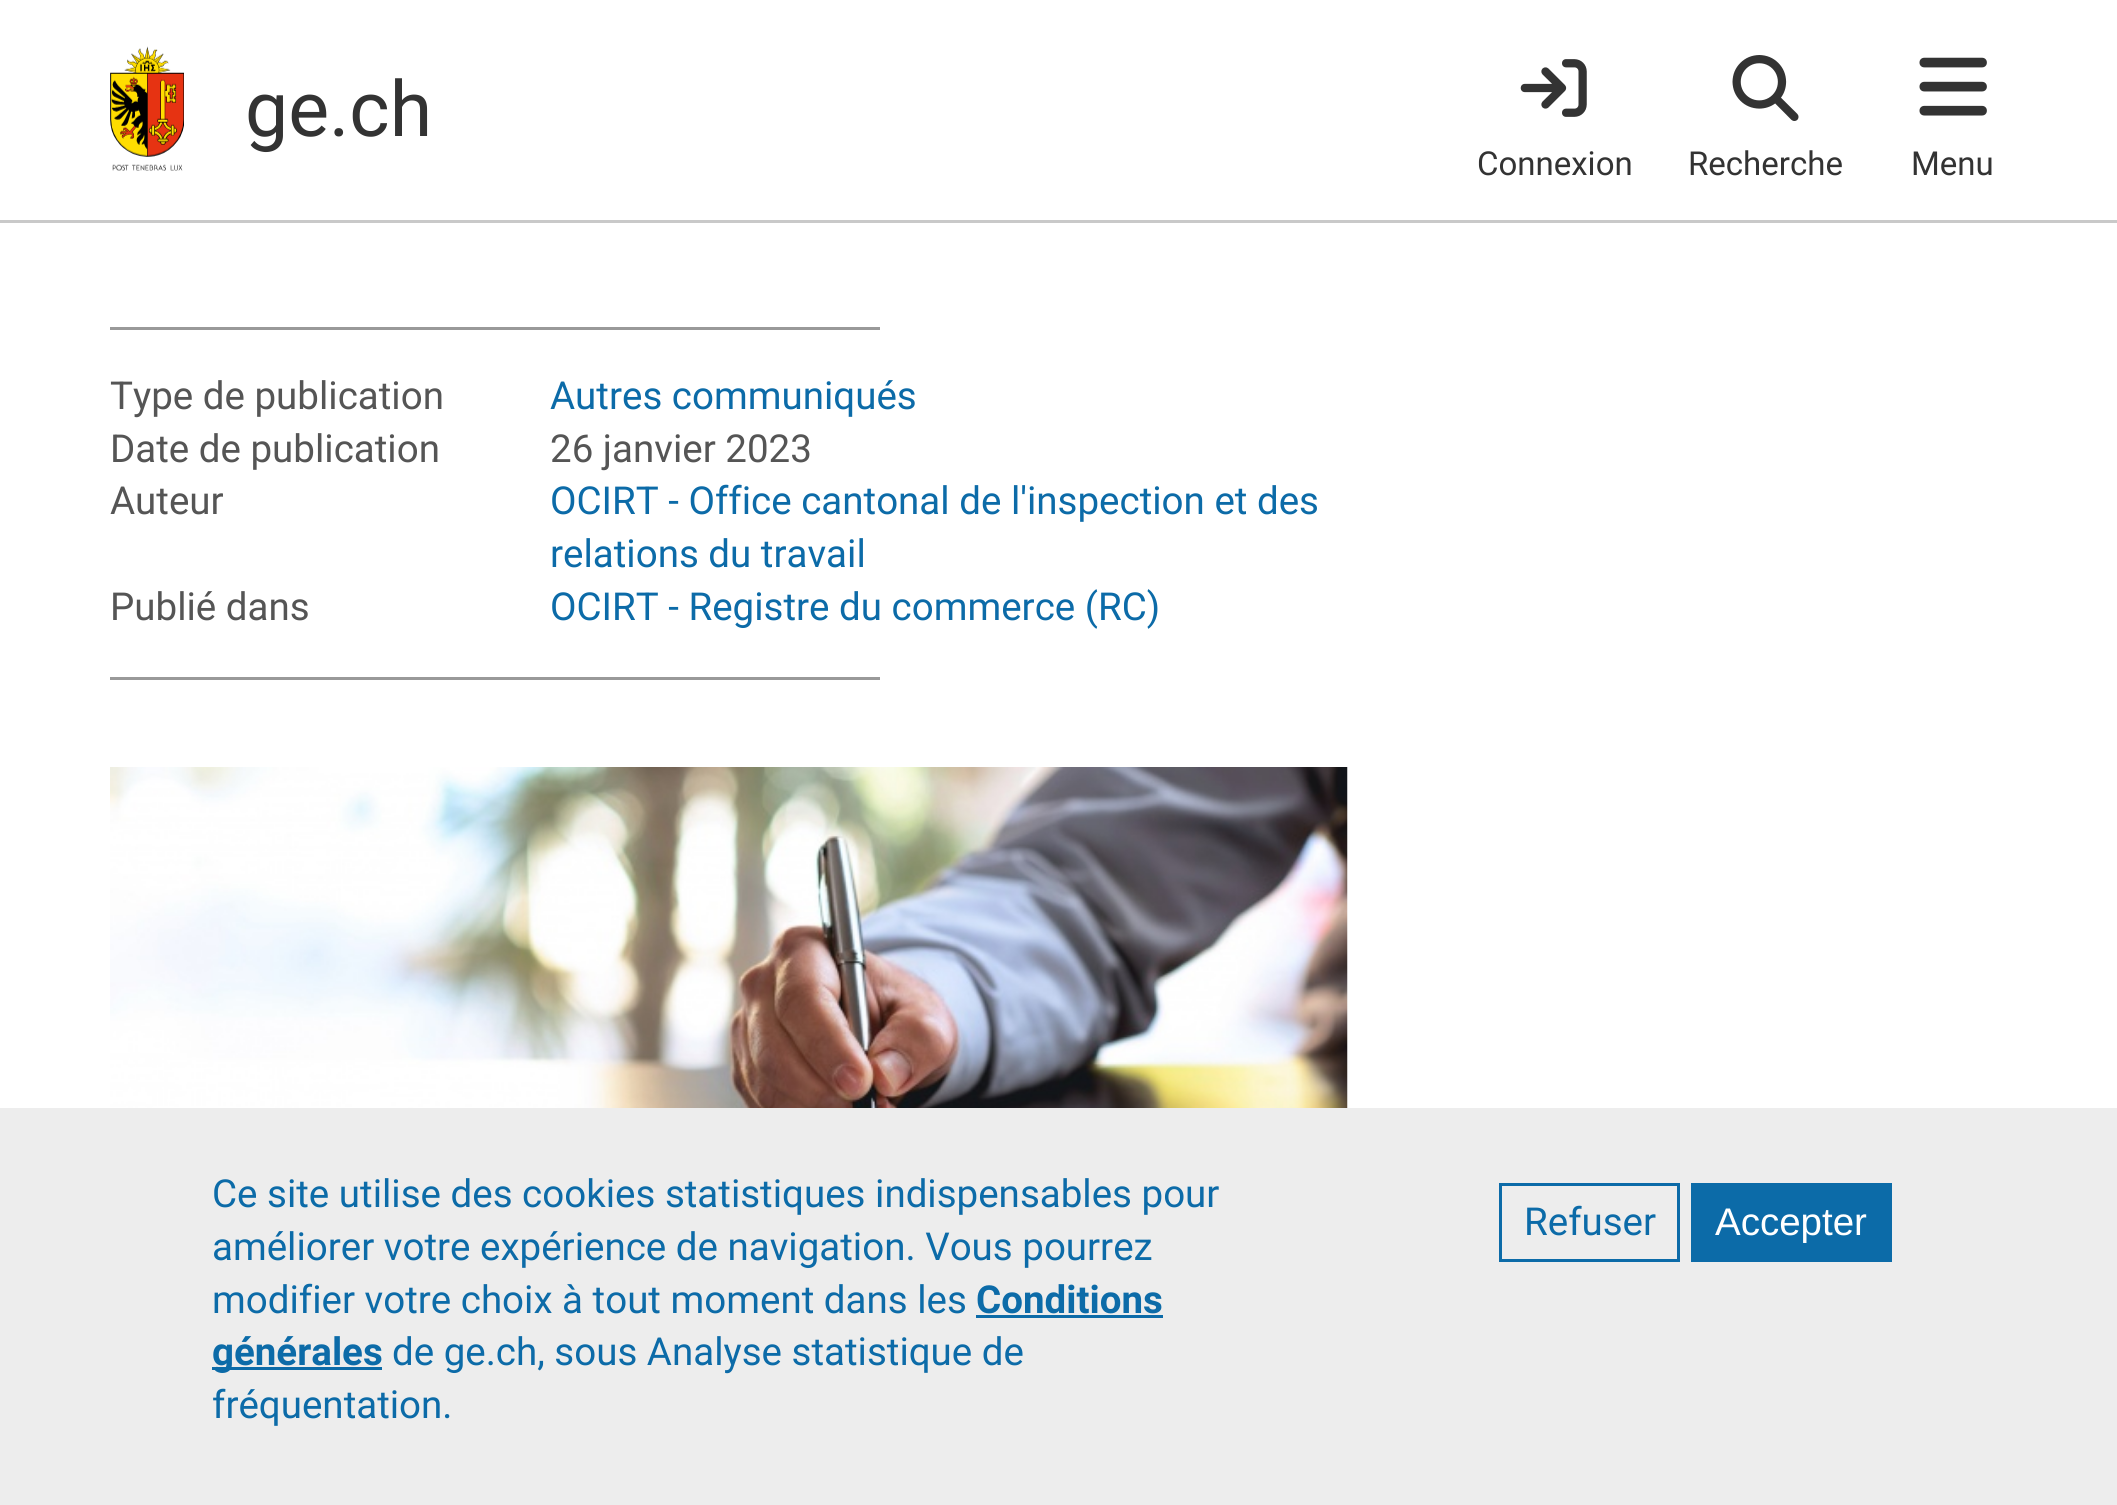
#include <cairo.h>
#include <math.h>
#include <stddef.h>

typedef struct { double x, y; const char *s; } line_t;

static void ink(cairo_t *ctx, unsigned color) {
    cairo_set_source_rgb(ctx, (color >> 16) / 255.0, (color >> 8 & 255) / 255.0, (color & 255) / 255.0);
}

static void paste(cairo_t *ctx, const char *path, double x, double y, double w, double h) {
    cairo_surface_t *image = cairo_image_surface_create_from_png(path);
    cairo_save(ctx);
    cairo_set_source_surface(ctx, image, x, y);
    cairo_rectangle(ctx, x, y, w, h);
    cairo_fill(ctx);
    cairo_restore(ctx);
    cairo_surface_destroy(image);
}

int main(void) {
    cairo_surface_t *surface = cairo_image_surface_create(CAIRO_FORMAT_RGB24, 2117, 1505);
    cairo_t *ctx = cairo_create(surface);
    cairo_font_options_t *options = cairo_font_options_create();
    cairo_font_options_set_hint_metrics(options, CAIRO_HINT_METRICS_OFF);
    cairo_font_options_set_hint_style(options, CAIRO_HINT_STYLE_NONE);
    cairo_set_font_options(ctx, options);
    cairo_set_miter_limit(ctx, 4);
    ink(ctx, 0xFFFFFF);
    cairo_paint(ctx);
    ink(ctx, 0xC9C9C9);
    cairo_rectangle(ctx, 0, 220, 2117, 3);
    cairo_fill(ctx);
    paste(ctx, "media/1.png", 110, 46, 74, 125);
    cairo_select_font_face(ctx, "Roboto", CAIRO_FONT_SLANT_NORMAL, CAIRO_FONT_WEIGHT_NORMAL);
    cairo_set_font_size(ctx, 77);
    ink(ctx, 0x333333);
    cairo_move_to(ctx, 245, 136);
    cairo_show_text(ctx, "ge.ch");
    paste(ctx, "media/2.png", 1520, 59, 67, 58);
    cairo_set_font_size(ctx, 33);
    cairo_move_to(ctx, 1477, 175);
    cairo_show_text(ctx, "Connexion");
    paste(ctx, "media/3.png", 1732, 55, 67, 66);
    cairo_move_to(ctx, 1688, 175);
    cairo_show_text(ctx, "Recherche");
    paste(ctx, "media/4.png", 1919, 57, 68, 59);
    cairo_move_to(ctx, 1911, 175);
    cairo_show_text(ctx, "Menu");
    ink(ctx, 0x999999);
    cairo_rectangle(ctx, 110, 327, 770, 3);
    cairo_fill(ctx);
    cairo_set_font_size(ctx, 38.5);
    ink(ctx, 0x555555);
    cairo_move_to(ctx, 110, 409);
    cairo_show_text(ctx, "Type de publication");
    ink(ctx, 0x0C6BA8);
    cairo_move_to(ctx, 550, 409);
    cairo_show_text(ctx, "Autres communiqués");
    ink(ctx, 0x555555);
    {
        static const line_t items[] = {
            {110, 462, "Date de publication"},
            {550, 462, "26 janvier 2023"},
            {110, 514, "Auteur"},
        };
        for (size_t i = 0; i < sizeof items / sizeof *items; i++) {
            cairo_move_to(ctx, items[i].x, items[i].y);
            cairo_show_text(ctx, items[i].s);
        }
    }
    ink(ctx, 0x0C6BA8);
    cairo_move_to(ctx, 550, 514);
    cairo_show_text(ctx, "OCIRT - Office cantonal de l'inspection et des");
    cairo_move_to(ctx, 550, 567);
    cairo_show_text(ctx, "relations du travail");
    ink(ctx, 0x555555);
    cairo_move_to(ctx, 110, 620);
    cairo_show_text(ctx, "Publié dans");
    ink(ctx, 0x0C6BA8);
    cairo_move_to(ctx, 550, 620);
    cairo_show_text(ctx, "OCIRT - Registre du commerce (RC)");
    ink(ctx, 0x999999);
    cairo_rectangle(ctx, 110, 677, 770, 3);
    cairo_fill(ctx);
    paste(ctx, "media/5.png", 110, 767, 1238, 341);
    ink(ctx, 0xEDEDED);
    cairo_rectangle(ctx, 0, 1108, 2117, 397);
    cairo_fill(ctx);
    ink(ctx, 0x0C6BA8);
    {
        static const line_t items[] = {
            {212, 1207, "Ce site utilise des cookies statistiques indispensables pour"},
            {212, 1260, "améliorer votre expérience de navigation. Vous pourrez"},
            {212, 1313, "modifier votre choix à tout moment dans les"},
        };
        for (size_t i = 0; i < sizeof items / sizeof *items; i++) {
            cairo_move_to(ctx, items[i].x, items[i].y);
            cairo_show_text(ctx, items[i].s);
        }
    }
    cairo_select_font_face(ctx, "Roboto", CAIRO_FONT_SLANT_NORMAL, CAIRO_FONT_WEIGHT_BOLD);
    cairo_move_to(ctx, 976, 1313);
    cairo_show_text(ctx, "Conditions");
    cairo_rectangle(ctx, 976, 1315, 187, 3);
    cairo_fill(ctx);
    cairo_rectangle(ctx, 212, 1367, 170, 3);
    cairo_fill(ctx);
    cairo_move_to(ctx, 212, 1365);
    cairo_show_text(ctx, "générales");
    cairo_select_font_face(ctx, "Roboto", CAIRO_FONT_SLANT_NORMAL, CAIRO_FONT_WEIGHT_NORMAL);
    cairo_move_to(ctx, 392, 1365);
    cairo_show_text(ctx, "de ge.ch, sous Analyse statistique de");
    cairo_move_to(ctx, 212, 1418);
    cairo_show_text(ctx, "fréquentation.");
    cairo_rectangle(ctx, 1500.5, 1184.5, 178, 76);
    cairo_set_line_width(ctx, 3);
    cairo_stroke(ctx);
    cairo_move_to(ctx, 1524, 1235);
    cairo_show_text(ctx, "Refuser");
    cairo_rectangle(ctx, 1691, 1183, 201, 79);
    cairo_fill(ctx);
    cairo_select_font_face(ctx, "Liberation Sans", CAIRO_FONT_SLANT_NORMAL, CAIRO_FONT_WEIGHT_NORMAL);
    ink(ctx, 0xFFFFFF);
    cairo_move_to(ctx, 1715, 1235);
    cairo_show_text(ctx, "Accepter");
    cairo_surface_write_to_png(surface, "image.png");
    cairo_font_options_destroy(options);
    cairo_destroy(ctx);
    cairo_surface_destroy(surface);
    return 0;
}
